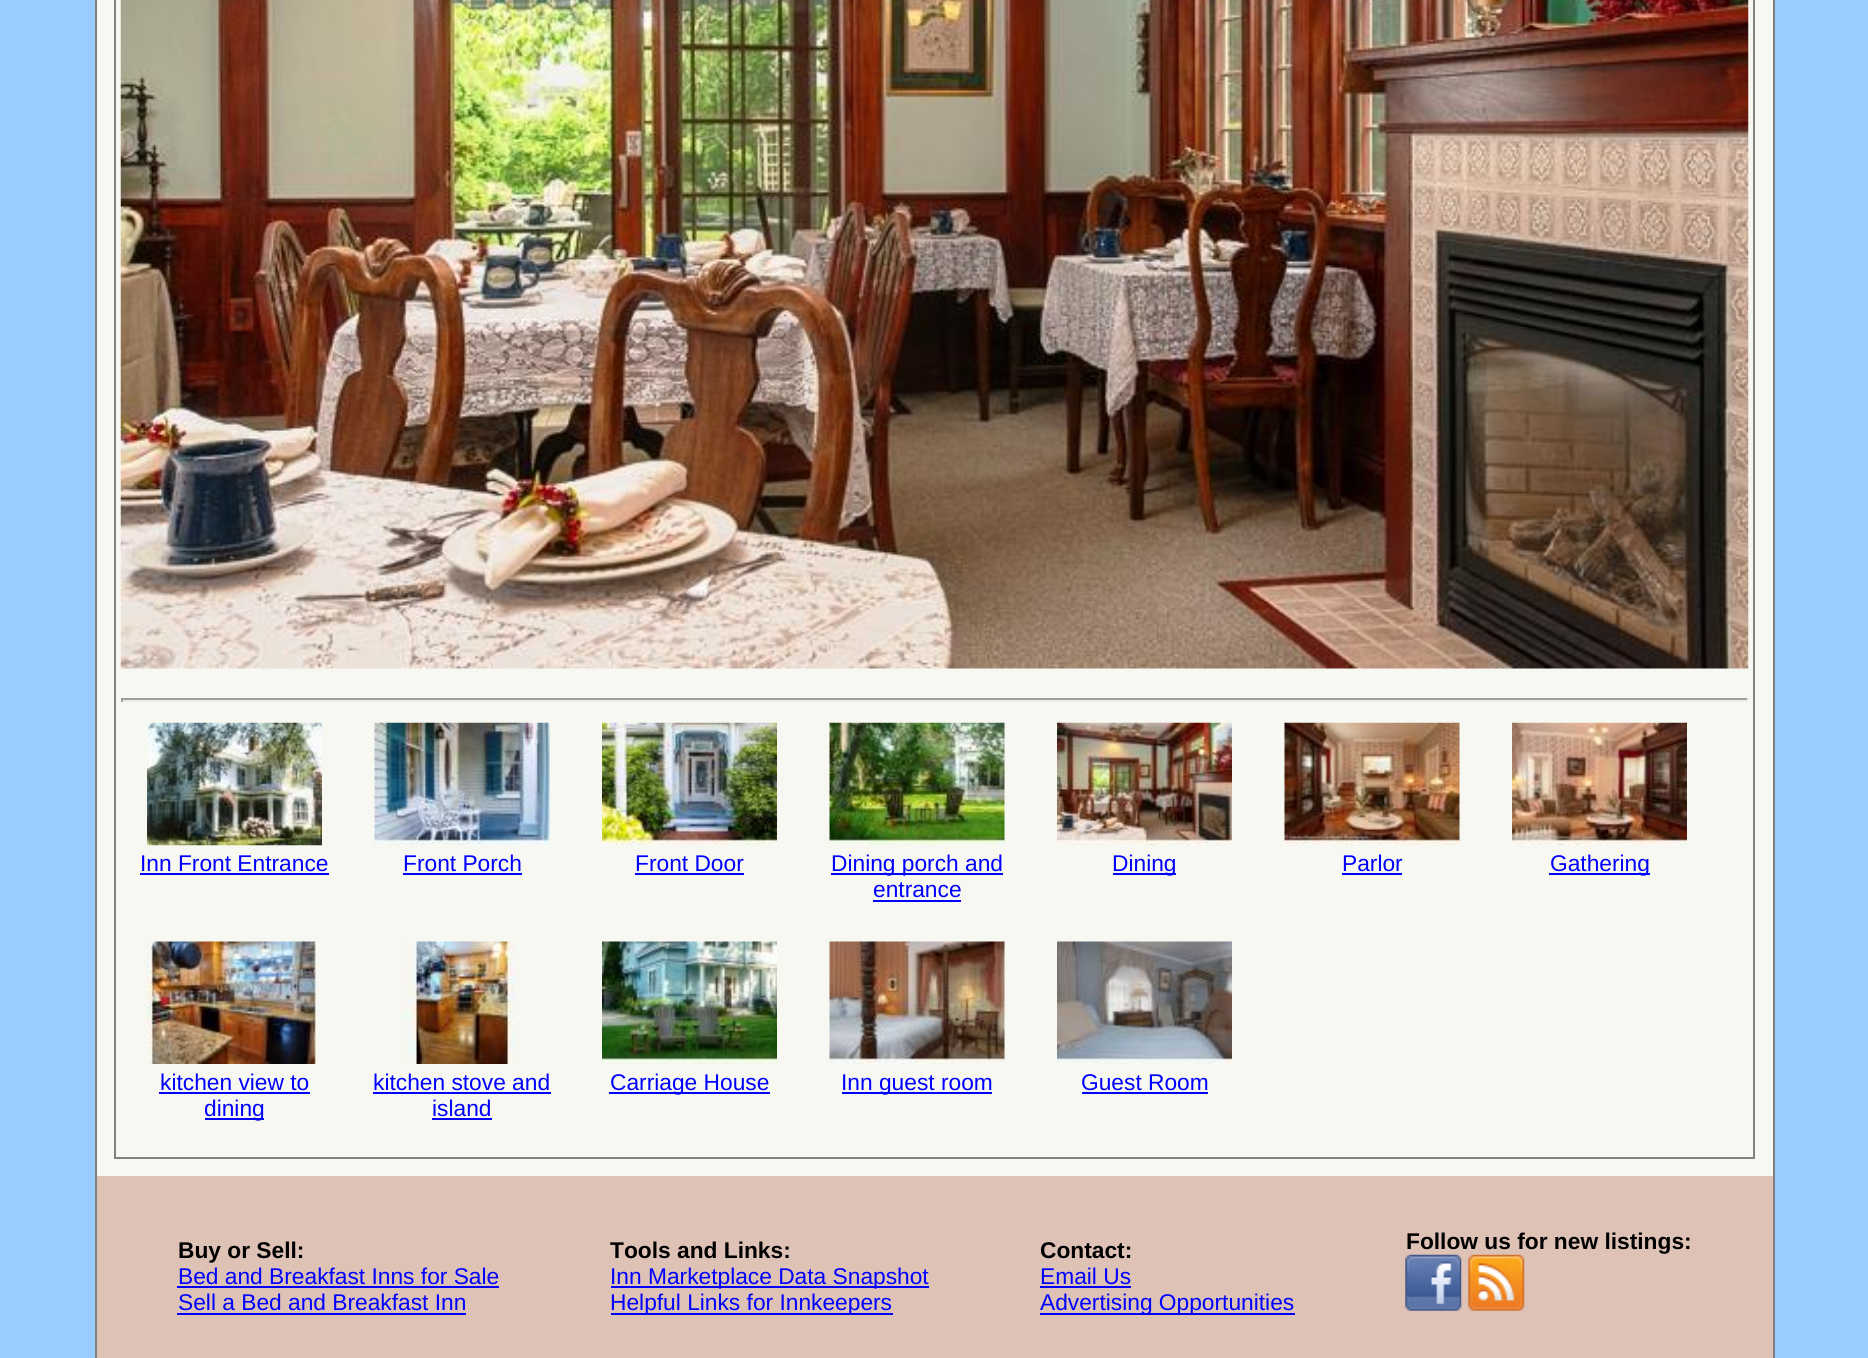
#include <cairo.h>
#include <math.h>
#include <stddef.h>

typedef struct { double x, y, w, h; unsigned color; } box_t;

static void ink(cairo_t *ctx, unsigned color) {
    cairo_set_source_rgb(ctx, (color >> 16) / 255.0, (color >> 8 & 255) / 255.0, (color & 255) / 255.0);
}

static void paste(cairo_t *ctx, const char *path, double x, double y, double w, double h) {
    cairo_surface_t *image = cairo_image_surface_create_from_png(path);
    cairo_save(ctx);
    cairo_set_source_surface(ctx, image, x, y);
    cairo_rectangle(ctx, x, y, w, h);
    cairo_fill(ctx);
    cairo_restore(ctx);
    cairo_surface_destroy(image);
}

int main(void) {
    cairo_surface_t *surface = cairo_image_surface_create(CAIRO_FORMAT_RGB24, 1868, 1358);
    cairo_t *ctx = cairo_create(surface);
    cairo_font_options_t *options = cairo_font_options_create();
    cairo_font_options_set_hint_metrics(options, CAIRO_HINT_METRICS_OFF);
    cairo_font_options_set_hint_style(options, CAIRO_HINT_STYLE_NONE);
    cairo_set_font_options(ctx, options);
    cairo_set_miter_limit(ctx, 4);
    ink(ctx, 0x99CCFF);
    cairo_paint(ctx);
    {
        static const box_t items[] = {
            {97, 0, 1676, 1176, 0xF8F8F2},
            {1773, 0, 2, 1358, 0x808080},
            {95, 0, 2, 1358, 0x808080},
        };
        for (size_t i = 0; i < sizeof items / sizeof *items; i++) {
            ink(ctx, items[i].color);
            cairo_rectangle(ctx, items[i].x, items[i].y, items[i].w, items[i].h);
            cairo_fill(ctx);
        }
    }
    cairo_rectangle(ctx, 115, -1, 1639, 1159);
    cairo_stroke(ctx);
    paste(ctx, "media/1.png", 120, 0, 1629, 669);
    {
        static const box_t items[] = {
            {121, 698, 1627, 2, 0x9F9F9F},
            {1747, 698, 2, 4, 0xEEEEEE},
            {121, 700, 1627, 2, 0xEEEEEE},
            {121, 698, 2, 4, 0x9F9F9F},
        };
        for (size_t i = 0; i < sizeof items / sizeof *items; i++) {
            ink(ctx, items[i].color);
            cairo_rectangle(ctx, items[i].x, items[i].y, items[i].w, items[i].h);
            cairo_fill(ctx);
        }
    }
    paste(ctx, "media/2.png", 147, 722, 175, 124);
    cairo_select_font_face(ctx, "Liberation Sans", CAIRO_FONT_SLANT_NORMAL, CAIRO_FONT_WEIGHT_NORMAL);
    cairo_set_font_size(ctx, 22.75);
    ink(ctx, 0x0000FF);
    cairo_move_to(ctx, 140, 871);
    cairo_show_text(ctx, "Inn Front Entrance");
    cairo_rectangle(ctx, 140, 873, 189, 2);
    cairo_fill(ctx);
    paste(ctx, "media/3.png", 374, 722, 176, 123);
    cairo_move_to(ctx, 403, 871);
    cairo_show_text(ctx, "Front Porch");
    cairo_rectangle(ctx, 403, 873, 119, 2);
    cairo_fill(ctx);
    paste(ctx, "media/4.png", 602, 722, 175, 123);
    cairo_move_to(ctx, 635, 871);
    cairo_show_text(ctx, "Front Door");
    cairo_rectangle(ctx, 635, 873, 109, 2);
    cairo_fill(ctx);
    paste(ctx, "media/5.png", 829, 722, 176, 123);
    cairo_rectangle(ctx, 831, 873, 172, 2);
    cairo_fill(ctx);
    cairo_move_to(ctx, 831, 871);
    cairo_show_text(ctx, "Dining porch and");
    cairo_move_to(ctx, 873, 897);
    cairo_show_text(ctx, "entrance");
    cairo_rectangle(ctx, 873, 900, 88, 2);
    cairo_fill(ctx);
    paste(ctx, "media/6.png", 1057, 722, 175, 124);
    cairo_rectangle(ctx, 1113, 873, 63, 2);
    cairo_fill(ctx);
    cairo_move_to(ctx, 1112, 871);
    cairo_show_text(ctx, "Dining");
    paste(ctx, "media/7.png", 1284, 722, 176, 123);
    cairo_move_to(ctx, 1342, 871);
    cairo_show_text(ctx, "Parlor");
    cairo_rectangle(ctx, 1342, 873, 60, 2);
    cairo_fill(ctx);
    paste(ctx, "media/8.png", 1512, 722, 175, 124);
    cairo_rectangle(ctx, 1549, 873, 101, 2);
    cairo_fill(ctx);
    cairo_move_to(ctx, 1550, 871);
    cairo_show_text(ctx, "Gathering");
    paste(ctx, "media/9.png", 147, 941, 170, 123);
    cairo_move_to(ctx, 160, 1090);
    cairo_show_text(ctx, "kitchen view to");
    cairo_rectangle(ctx, 159, 1092, 151, 2);
    cairo_fill(ctx);
    cairo_rectangle(ctx, 205, 1118, 59, 2);
    cairo_fill(ctx);
    cairo_move_to(ctx, 204, 1116);
    cairo_show_text(ctx, "dining");
    paste(ctx, "media/10.png", 402, 941, 114, 123);
    cairo_move_to(ctx, 373, 1090);
    cairo_show_text(ctx, "kitchen stove and");
    cairo_rectangle(ctx, 373, 1092, 178, 2);
    cairo_fill(ctx);
    cairo_move_to(ctx, 432, 1116);
    cairo_show_text(ctx, "island");
    cairo_rectangle(ctx, 432, 1118, 60, 2);
    cairo_fill(ctx);
    paste(ctx, "media/11.png", 602, 941, 175, 123);
    cairo_rectangle(ctx, 609, 1092, 161, 2);
    cairo_fill(ctx);
    cairo_move_to(ctx, 610, 1090);
    cairo_show_text(ctx, "Carriage House");
    paste(ctx, "media/12.png", 829, 941, 176, 123);
    cairo_rectangle(ctx, 842, 1092, 150, 2);
    cairo_fill(ctx);
    cairo_move_to(ctx, 841, 1090);
    cairo_show_text(ctx, "Inn guest room");
    paste(ctx, "media/13.png", 1057, 941, 175, 123);
    cairo_move_to(ctx, 1081, 1090);
    cairo_show_text(ctx, "Guest Room");
    cairo_rectangle(ctx, 1082, 1092, 126, 2);
    cairo_fill(ctx);
    ink(ctx, 0xDEC2B6);
    cairo_rectangle(ctx, 97, 1176, 1676, 182);
    cairo_fill(ctx);
    cairo_select_font_face(ctx, "Liberation Sans", CAIRO_FONT_SLANT_NORMAL, CAIRO_FONT_WEIGHT_BOLD);
    ink(ctx, 0x000000);
    cairo_move_to(ctx, 178, 1258);
    cairo_show_text(ctx, "Buy or Sell:");
    cairo_select_font_face(ctx, "Liberation Sans", CAIRO_FONT_SLANT_NORMAL, CAIRO_FONT_WEIGHT_NORMAL);
    ink(ctx, 0x0000FF);
    cairo_move_to(ctx, 178, 1284);
    cairo_show_text(ctx, "Bed and Breakfast Inns for Sale");
    cairo_rectangle(ctx, 177, 1286, 322, 2);
    cairo_fill(ctx);
    cairo_move_to(ctx, 178, 1310);
    cairo_show_text(ctx, "Sell a Bed and Breakfast Inn");
    cairo_rectangle(ctx, 177, 1313, 289, 2);
    cairo_fill(ctx);
    cairo_select_font_face(ctx, "Liberation Sans", CAIRO_FONT_SLANT_NORMAL, CAIRO_FONT_WEIGHT_BOLD);
    ink(ctx, 0x000000);
    cairo_move_to(ctx, 610, 1258);
    cairo_show_text(ctx, "Tools and Links:");
    ink(ctx, 0x0000FF);
    cairo_rectangle(ctx, 611, 1286, 318, 2);
    cairo_fill(ctx);
    cairo_select_font_face(ctx, "Liberation Sans", CAIRO_FONT_SLANT_NORMAL, CAIRO_FONT_WEIGHT_NORMAL);
    cairo_move_to(ctx, 610, 1284);
    cairo_show_text(ctx, "Inn Marketplace Data Snapshot");
    cairo_rectangle(ctx, 611, 1313, 282, 2);
    cairo_fill(ctx);
    cairo_move_to(ctx, 610, 1310);
    cairo_show_text(ctx, "Helpful Links for Innkeepers");
    cairo_select_font_face(ctx, "Liberation Sans", CAIRO_FONT_SLANT_NORMAL, CAIRO_FONT_WEIGHT_BOLD);
    ink(ctx, 0x000000);
    cairo_move_to(ctx, 1040, 1258);
    cairo_show_text(ctx, "Contact:");
    cairo_select_font_face(ctx, "Liberation Sans", CAIRO_FONT_SLANT_NORMAL, CAIRO_FONT_WEIGHT_NORMAL);
    ink(ctx, 0x0000FF);
    cairo_move_to(ctx, 1040, 1284);
    cairo_show_text(ctx, "Email Us");
    cairo_rectangle(ctx, 1040, 1286, 91, 2);
    cairo_fill(ctx);
    cairo_rectangle(ctx, 1040, 1313, 255, 2);
    cairo_fill(ctx);
    cairo_move_to(ctx, 1040, 1310);
    cairo_show_text(ctx, "Advertising Opportunities");
    cairo_select_font_face(ctx, "Liberation Sans", CAIRO_FONT_SLANT_NORMAL, CAIRO_FONT_WEIGHT_BOLD);
    ink(ctx, 0x000000);
    cairo_move_to(ctx, 1406, 1249);
    cairo_show_text(ctx, "Follow us for new listings:");
    paste(ctx, "media/14.png", 1405, 1254, 57, 57);
    paste(ctx, "media/15.png", 1468, 1254, 57, 57);
    cairo_surface_write_to_png(surface, "image.png");
    cairo_font_options_destroy(options);
    cairo_destroy(ctx);
    cairo_surface_destroy(surface);
    return 0;
}
